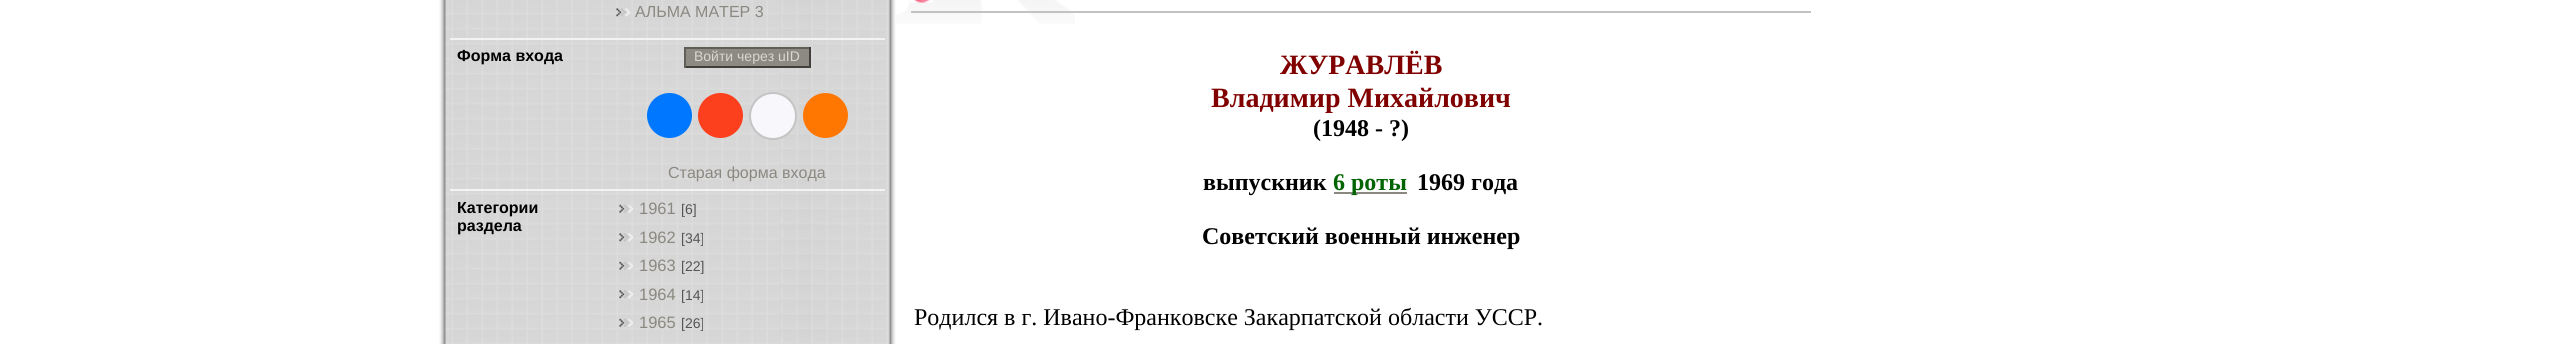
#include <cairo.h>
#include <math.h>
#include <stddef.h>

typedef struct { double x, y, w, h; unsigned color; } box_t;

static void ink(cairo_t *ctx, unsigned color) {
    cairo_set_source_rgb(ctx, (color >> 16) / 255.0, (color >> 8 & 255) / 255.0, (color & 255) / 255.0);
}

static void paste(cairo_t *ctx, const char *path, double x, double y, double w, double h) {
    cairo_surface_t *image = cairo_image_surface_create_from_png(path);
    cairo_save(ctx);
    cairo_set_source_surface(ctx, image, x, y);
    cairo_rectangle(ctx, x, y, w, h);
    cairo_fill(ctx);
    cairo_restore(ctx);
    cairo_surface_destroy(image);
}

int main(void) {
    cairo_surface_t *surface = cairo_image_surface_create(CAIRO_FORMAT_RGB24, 2571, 344);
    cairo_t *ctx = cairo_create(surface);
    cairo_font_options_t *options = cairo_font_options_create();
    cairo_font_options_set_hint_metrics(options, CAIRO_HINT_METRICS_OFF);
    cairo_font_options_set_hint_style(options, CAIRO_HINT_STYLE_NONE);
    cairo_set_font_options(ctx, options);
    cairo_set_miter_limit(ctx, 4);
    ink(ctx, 0xFFFFFF);
    cairo_paint(ctx);
    paste(ctx, "media/1.png", 439, 0, 457, 344);
    ink(ctx, 0xF3F3F3);
    cairo_rectangle(ctx, 450, 38, 435, 2);
    cairo_fill(ctx);
    paste(ctx, "media/2.png", 616, 8, 14, 9);
    cairo_select_font_face(ctx, "Liberation Sans", CAIRO_FONT_SLANT_NORMAL, CAIRO_FONT_WEIGHT_NORMAL);
    cairo_set_font_size(ctx, 16);
    ink(ctx, 0x8B8881);
    cairo_move_to(ctx, 635, 17);
    cairo_show_text(ctx, "АЛЬМА МАТЕР 3");
    ink(ctx, 0xF3F3F3);
    cairo_rectangle(ctx, 450, 189, 435, 2);
    cairo_fill(ctx);
    cairo_select_font_face(ctx, "Liberation Sans", CAIRO_FONT_SLANT_NORMAL, CAIRO_FONT_WEIGHT_BOLD);
    ink(ctx, 0x000000);
    cairo_move_to(ctx, 457, 61);
    cairo_show_text(ctx, "Форма входа");
    {
        static const box_t items[] = {
            {686, 49, 123, 17, 0x8D8A83},
            {684, 47, 126, 2, 0x615E58},
            {809, 47, 2, 21, 0x413F3B},
            {684, 66, 126, 2, 0x413F3B},
            {684, 47, 2, 21, 0x615E58},
        };
        for (size_t i = 0; i < sizeof items / sizeof *items; i++) {
            ink(ctx, items[i].color);
            cairo_rectangle(ctx, items[i].x, items[i].y, items[i].w, items[i].h);
            cairo_fill(ctx);
        }
    }
    cairo_select_font_face(ctx, "Liberation Sans", CAIRO_FONT_SLANT_NORMAL, CAIRO_FONT_WEIGHT_NORMAL);
    cairo_set_font_size(ctx, 14);
    ink(ctx, 0xDAD7CC);
    cairo_move_to(ctx, 694, 61);
    cairo_show_text(ctx, "Войти через uID");
    ink(ctx, 0x0077FF);
    cairo_new_path(ctx);
    cairo_arc(ctx, 669.5, 115.5, 22.5, 0, 2 * M_PI);
    cairo_fill(ctx);
    ink(ctx, 0xFC3F1D);
    cairo_arc(ctx, 720.5, 115.5, 22.5, 0, 2 * M_PI);
    cairo_fill(ctx);
    ink(ctx, 0xF8F8FC);
    cairo_arc(ctx, 773, 116, 23, 0, 2 * M_PI);
    cairo_fill_preserve(ctx);
    ink(ctx, 0xC4C4C4);
    cairo_stroke(ctx);
    ink(ctx, 0xFF7700);
    cairo_arc(ctx, 825.5, 115.5, 22.5, 0, 2 * M_PI);
    cairo_fill(ctx);
    cairo_set_font_size(ctx, 16);
    ink(ctx, 0x8B8881);
    cairo_move_to(ctx, 668, 178);
    cairo_show_text(ctx, "Старая форма входа");
    cairo_select_font_face(ctx, "Liberation Sans", CAIRO_FONT_SLANT_NORMAL, CAIRO_FONT_WEIGHT_BOLD);
    ink(ctx, 0x000000);
    cairo_move_to(ctx, 457, 213);
    cairo_show_text(ctx, "Категории");
    cairo_move_to(ctx, 457, 231);
    cairo_show_text(ctx, "раздела");
    paste(ctx, "media/3.png", 619, 204, 14, 9);
    cairo_select_font_face(ctx, "Liberation Sans", CAIRO_FONT_SLANT_NORMAL, CAIRO_FONT_WEIGHT_NORMAL);
    cairo_set_font_size(ctx, 16.5);
    ink(ctx, 0x8B8881);
    cairo_move_to(ctx, 639, 214);
    cairo_show_text(ctx, "1961");
    cairo_set_font_size(ctx, 14);
    ink(ctx, 0x555555);
    cairo_move_to(ctx, 681, 214);
    cairo_show_text(ctx, "[6]");
    paste(ctx, "media/4.png", 619, 233, 14, 9);
    cairo_set_font_size(ctx, 16.5);
    ink(ctx, 0x8B8881);
    cairo_move_to(ctx, 639, 243);
    cairo_show_text(ctx, "1962");
    cairo_set_font_size(ctx, 14);
    ink(ctx, 0x555555);
    cairo_move_to(ctx, 681, 243);
    cairo_show_text(ctx, "[34]");
    paste(ctx, "media/5.png", 619, 261, 14, 9);
    cairo_set_font_size(ctx, 16.5);
    ink(ctx, 0x8B8881);
    cairo_move_to(ctx, 639, 271);
    cairo_show_text(ctx, "1963");
    cairo_set_font_size(ctx, 14);
    ink(ctx, 0x555555);
    cairo_move_to(ctx, 681, 271);
    cairo_show_text(ctx, "[22]");
    paste(ctx, "media/6.png", 619, 290, 14, 9);
    cairo_set_font_size(ctx, 16.5);
    ink(ctx, 0x8B8881);
    cairo_move_to(ctx, 639, 300);
    cairo_show_text(ctx, "1964");
    cairo_set_font_size(ctx, 14);
    ink(ctx, 0x555555);
    cairo_move_to(ctx, 681, 300);
    cairo_show_text(ctx, "[14]");
    paste(ctx, "media/7.png", 619, 318, 14, 9);
    cairo_set_font_size(ctx, 16.5);
    ink(ctx, 0x8B8881);
    cairo_move_to(ctx, 639, 328);
    cairo_show_text(ctx, "1965");
    cairo_set_font_size(ctx, 14);
    ink(ctx, 0x555555);
    cairo_move_to(ctx, 681, 328);
    cairo_show_text(ctx, "[26]");
    paste(ctx, "media/8.png", 896, 0, 179, 24);
    paste(ctx, "media/9.png", 911, 0, 22, 3);
    ink(ctx, 0xC2C2C2);
    cairo_rectangle(ctx, 911, 11, 900, 2);
    cairo_fill(ctx);
    cairo_select_font_face(ctx, "Liberation Serif", CAIRO_FONT_SLANT_NORMAL, CAIRO_FONT_WEIGHT_BOLD);
    cairo_set_font_size(ctx, 28);
    ink(ctx, 0x800000);
    cairo_move_to(ctx, 1280, 74);
    cairo_show_text(ctx, "ЖУРАВЛЁВ");
    cairo_move_to(ctx, 1211, 107);
    cairo_show_text(ctx, "Владимир Михайлович");
    cairo_set_font_size(ctx, 24);
    ink(ctx, 0x000000);
    cairo_move_to(ctx, 1313, 136);
    cairo_show_text(ctx, "(1948 - ?)");
    cairo_move_to(ctx, 1203, 190);
    cairo_show_text(ctx, "выпускник");
    ink(ctx, 0x8B8881);
    cairo_rectangle(ctx, 1334, 192, 73, 2);
    cairo_fill(ctx);
    ink(ctx, 0x006400);
    cairo_move_to(ctx, 1333, 190);
    cairo_show_text(ctx, "6 роты");
    ink(ctx, 0x000000);
    cairo_move_to(ctx, 1417, 190);
    cairo_show_text(ctx, "1969 года");
    cairo_move_to(ctx, 1202, 244);
    cairo_show_text(ctx, "Советский военный инженер");
    cairo_select_font_face(ctx, "Liberation Serif", CAIRO_FONT_SLANT_NORMAL, CAIRO_FONT_WEIGHT_NORMAL);
    cairo_move_to(ctx, 914, 325);
    cairo_show_text(ctx, "Родился в г. Ивано-Франковске Закарпатской области УССР.");
    cairo_surface_write_to_png(surface, "image.png");
    cairo_font_options_destroy(options);
    cairo_destroy(ctx);
    cairo_surface_destroy(surface);
    return 0;
}
